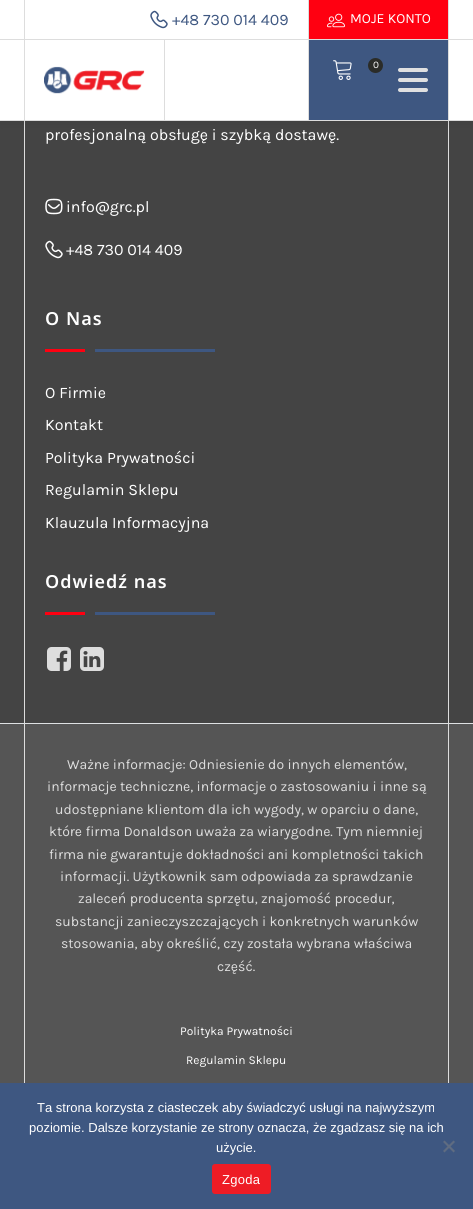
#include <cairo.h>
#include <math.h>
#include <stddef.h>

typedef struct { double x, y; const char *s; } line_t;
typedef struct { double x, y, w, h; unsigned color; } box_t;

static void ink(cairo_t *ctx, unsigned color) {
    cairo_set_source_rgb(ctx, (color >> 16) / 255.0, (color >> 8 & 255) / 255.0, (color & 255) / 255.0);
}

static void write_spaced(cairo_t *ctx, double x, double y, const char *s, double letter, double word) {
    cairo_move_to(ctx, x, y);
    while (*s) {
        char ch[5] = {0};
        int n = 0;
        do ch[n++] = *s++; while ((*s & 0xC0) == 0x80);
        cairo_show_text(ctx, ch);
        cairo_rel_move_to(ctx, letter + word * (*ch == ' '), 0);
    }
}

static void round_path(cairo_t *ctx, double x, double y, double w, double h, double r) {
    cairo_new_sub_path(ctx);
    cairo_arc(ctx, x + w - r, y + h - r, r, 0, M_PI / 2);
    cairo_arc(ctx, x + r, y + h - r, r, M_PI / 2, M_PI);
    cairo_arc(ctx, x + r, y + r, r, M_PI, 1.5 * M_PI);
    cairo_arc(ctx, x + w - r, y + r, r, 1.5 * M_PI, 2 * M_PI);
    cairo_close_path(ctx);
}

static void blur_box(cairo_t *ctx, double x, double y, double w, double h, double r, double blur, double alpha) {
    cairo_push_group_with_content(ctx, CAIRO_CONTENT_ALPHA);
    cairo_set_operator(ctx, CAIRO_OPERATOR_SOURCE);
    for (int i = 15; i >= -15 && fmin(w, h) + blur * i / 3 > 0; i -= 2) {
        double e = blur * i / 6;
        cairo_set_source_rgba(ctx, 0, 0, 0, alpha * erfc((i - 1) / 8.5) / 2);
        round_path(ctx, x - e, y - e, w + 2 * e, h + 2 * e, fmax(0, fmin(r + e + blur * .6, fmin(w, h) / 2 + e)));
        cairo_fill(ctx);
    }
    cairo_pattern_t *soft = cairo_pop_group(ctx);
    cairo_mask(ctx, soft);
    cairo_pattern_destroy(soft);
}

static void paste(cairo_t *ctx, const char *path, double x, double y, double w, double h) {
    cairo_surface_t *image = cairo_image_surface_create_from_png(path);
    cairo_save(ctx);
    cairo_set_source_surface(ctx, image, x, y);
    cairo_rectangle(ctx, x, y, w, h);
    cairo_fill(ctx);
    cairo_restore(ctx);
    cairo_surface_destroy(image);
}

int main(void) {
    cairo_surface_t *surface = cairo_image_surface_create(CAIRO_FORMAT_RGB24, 473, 1209);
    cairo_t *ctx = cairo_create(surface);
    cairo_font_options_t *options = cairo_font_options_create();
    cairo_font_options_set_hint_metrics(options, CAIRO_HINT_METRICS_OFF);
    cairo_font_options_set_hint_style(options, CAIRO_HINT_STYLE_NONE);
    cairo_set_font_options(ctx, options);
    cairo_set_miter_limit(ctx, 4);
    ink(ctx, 0x444444);
    cairo_paint(ctx);
    ink(ctx, 0xDDDDDD);
    cairo_rectangle(ctx, 448, 121, 1, 602);
    cairo_fill(ctx);
    cairo_rectangle(ctx, 24, 121, 1, 602);
    cairo_fill(ctx);
    ink(ctx, 0x000000);
    blur_box(ctx, 0, 0, 473, 121, 0, 5, 0.1);
    {
        static const box_t items[] = {
            {0, 0, 473, 120, 0xFFFFFF},
            {0, 39, 473, 1, 0xDDDDDD},
            {448, 0, 1, 39, 0xDDDDDD},
            {24, 0, 1, 39, 0xDDDDDD},
        };
        for (size_t i = 0; i < sizeof items / sizeof *items; i++) {
            ink(ctx, items[i].color);
            cairo_rectangle(ctx, items[i].x, items[i].y, items[i].w, items[i].h);
            cairo_fill(ctx);
        }
    }
    paste(ctx, "media/1.png", 150, 10, 18, 19);
    cairo_select_font_face(ctx, "Karla", CAIRO_FONT_SLANT_NORMAL, CAIRO_FONT_WEIGHT_NORMAL);
    cairo_set_font_size(ctx, 16);
    ink(ctx, 0x3E5781);
    cairo_move_to(ctx, 172, 25);
    cairo_show_text(ctx, "+48 730 014 409");
    ink(ctx, 0xFF0011);
    cairo_rectangle(ctx, 309, 0, 139, 39);
    cairo_fill(ctx);
    ink(ctx, 0xDDDDDD);
    cairo_rectangle(ctx, 308, 0, 1, 39);
    cairo_fill(ctx);
    paste(ctx, "media/2.png", 327, 13, 18, 15);
    cairo_set_font_size(ctx, 14);
    ink(ctx, 0xFFFFFF);
    cairo_move_to(ctx, 350, 23);
    cairo_show_text(ctx, "MOJE KONTO");
    {
        static const box_t items[] = {
            {0, 120, 473, 1, 0xDDDDDD},
            {448, 40, 1, 80, 0xDDDDDD},
            {24, 40, 1, 80, 0xDDDDDD},
            {164, 40, 1, 80, 0xDDDDDD},
        };
        for (size_t i = 0; i < sizeof items / sizeof *items; i++) {
            ink(ctx, items[i].color);
            cairo_rectangle(ctx, items[i].x, items[i].y, items[i].w, items[i].h);
            cairo_fill(ctx);
        }
    }
    paste(ctx, "media/3.png", 44, 66, 101, 28);
    cairo_rectangle(ctx, 308, 40, 1, 80);
    cairo_fill(ctx);
    ink(ctx, 0x3E5781);
    cairo_rectangle(ctx, 309, 40, 139, 80);
    cairo_fill(ctx);
    paste(ctx, "media/4.png", 333, 60, 19, 20);
    ink(ctx, 0x2B2C28);
    cairo_arc(ctx, 375.5, 65.5, 7.5, 0, 2 * M_PI);
    cairo_fill(ctx);
    cairo_set_font_size(ctx, 10);
    ink(ctx, 0xFFFFFF);
    cairo_move_to(ctx, 373, 68);
    cairo_show_text(ctx, "0");
    ink(ctx, 0xE0E0E0);
    round_path(ctx, 398, 68, 30, 4, 2);
    cairo_fill(ctx);
    round_path(ctx, 398, 78, 30, 4, 2);
    cairo_fill(ctx);
    round_path(ctx, 398, 88, 30, 4, 2);
    cairo_fill(ctx);
    cairo_set_font_size(ctx, 16);
    ink(ctx, 0xFFFFFF);
    cairo_move_to(ctx, 45, 140);
    cairo_show_text(ctx, "profesjonalną obsługę i szybką dostawę.");
    paste(ctx, "media/5.png", 45, 198, 18, 17);
    cairo_move_to(ctx, 66, 212);
    cairo_show_text(ctx, "info@grc.pl");
    paste(ctx, "media/6.png", 45, 240, 18, 19);
    cairo_move_to(ctx, 66, 255);
    cairo_show_text(ctx, "+48 730 014 409");
    cairo_select_font_face(ctx, "Noto Sans SemiBold", CAIRO_FONT_SLANT_NORMAL, CAIRO_FONT_WEIGHT_NORMAL);
    cairo_set_font_size(ctx, 18);
    write_spaced(ctx, 45, 325, "O Nas", 1, 0);
    ink(ctx, 0xFF0011);
    cairo_rectangle(ctx, 45, 349, 40, 3);
    cairo_fill(ctx);
    ink(ctx, 0x3E5781);
    cairo_rectangle(ctx, 95, 349, 120, 3);
    cairo_fill(ctx);
    cairo_select_font_face(ctx, "Karla", CAIRO_FONT_SLANT_NORMAL, CAIRO_FONT_WEIGHT_NORMAL);
    cairo_set_font_size(ctx, 16);
    ink(ctx, 0xFFFFFF);
    {
        static const line_t items[] = {
            {45, 398, "O Firmie"},
            {45, 430, "Kontakt"},
            {45, 463, "Polityka Prywatności"},
            {45, 495, "Regulamin Sklepu"},
            {45, 528, "Klauzula Informacyjna"},
        };
        for (size_t i = 0; i < sizeof items / sizeof *items; i++) {
            cairo_move_to(ctx, items[i].x, items[i].y);
            cairo_show_text(ctx, items[i].s);
        }
    }
    cairo_select_font_face(ctx, "Noto Sans SemiBold", CAIRO_FONT_SLANT_NORMAL, CAIRO_FONT_WEIGHT_NORMAL);
    cairo_set_font_size(ctx, 18);
    write_spaced(ctx, 45, 588, "Odwiedź nas", 1, 0);
    ink(ctx, 0xFF0011);
    cairo_rectangle(ctx, 45, 612, 40, 3);
    cairo_fill(ctx);
    ink(ctx, 0x3E5781);
    cairo_rectangle(ctx, 95, 612, 120, 3);
    cairo_fill(ctx);
    paste(ctx, "media/7.png", 47, 647, 24, 24);
    paste(ctx, "media/8.png", 80, 647, 24, 24);
    {
        static const box_t items[] = {
            {0, 724, 473, 359, 0x555555},
            {0, 723, 473, 1, 0xDEE1E3},
            {448, 724, 1, 359, 0xDDDDDD},
            {24, 724, 1, 359, 0xDDDDDD},
        };
        for (size_t i = 0; i < sizeof items / sizeof *items; i++) {
            ink(ctx, items[i].color);
            cairo_rectangle(ctx, items[i].x, items[i].y, items[i].w, items[i].h);
            cairo_fill(ctx);
        }
    }
    cairo_select_font_face(ctx, "Karla", CAIRO_FONT_SLANT_NORMAL, CAIRO_FONT_WEIGHT_NORMAL);
    cairo_set_font_size(ctx, 14);
    {
        static const line_t items[] = {
            {67, 769, "Ważne informacje: Odniesienie do innych elementów,"},
            {47, 791, "informacje techniczne, informacje o zastosowaniu i inne są"},
            {55, 814, "udostępniane klientom dla ich wygody, w oparciu o dane,"},
            {49, 836, "które firma Donaldson uważa za wiarygodne. Tym niemniej"},
            {49, 859, "firma nie gwarantuje dokładności ani kompletności takich"},
            {60, 881, "informacji. Użytkownik sam odpowiada za sprawdzanie"},
            {78, 903, "zaleceń producenta sprzętu, znajomość procedur,"},
            {55, 926, "substancji zanieczyszczających i konkretnych warunków"},
            {61, 948, "stosowania, aby określić, czy została wybrana właściwa"},
            {217, 971, "część."},
        };
        for (size_t i = 0; i < sizeof items / sizeof *items; i++) {
            cairo_move_to(ctx, items[i].x, items[i].y);
            cairo_show_text(ctx, items[i].s);
        }
    }
    cairo_set_font_size(ctx, 12);
    ink(ctx, 0xFFFFFF);
    cairo_move_to(ctx, 180, 1035);
    cairo_show_text(ctx, "Polityka Prywatności");
    cairo_move_to(ctx, 186, 1064);
    cairo_show_text(ctx, "Regulamin Sklepu");
    ink(ctx, 0x3E5781);
    cairo_rectangle(ctx, 0, 1083, 473, 126);
    cairo_fill(ctx);
    cairo_select_font_face(ctx, "Liberation Sans", CAIRO_FONT_SLANT_NORMAL, CAIRO_FONT_WEIGHT_NORMAL);
    cairo_set_font_size(ctx, 13);
    ink(ctx, 0xFFFFFF);
    {
        static const line_t items[] = {
            {37, 1112, "Ta strona korzysta z ciasteczek aby świadczyć usługi na najwyższym"},
            {29, 1132, "poziomie. Dalsze korzystanie ze strony oznacza, że zgadzasz się na ich"},
            {216, 1152, "użycie."},
        };
        for (size_t i = 0; i < sizeof items / sizeof *items; i++) {
            cairo_move_to(ctx, items[i].x, items[i].y);
            cairo_show_text(ctx, items[i].s);
        }
    }
    ink(ctx, 0x5F6C81);
    cairo_new_path(ctx);
    cairo_move_to(ctx, 453.5, 1140.5);
    cairo_line_to(ctx, 455, 1142);
    cairo_line_to(ctx, 444.5, 1152.5);
    cairo_line_to(ctx, 443, 1151);
    cairo_close_path(ctx);
    cairo_fill(ctx);
    cairo_new_path(ctx);
    cairo_move_to(ctx, 443, 1142);
    cairo_line_to(ctx, 444.5, 1140.5);
    cairo_line_to(ctx, 455, 1151);
    cairo_line_to(ctx, 453.5, 1152.5);
    cairo_close_path(ctx);
    cairo_fill(ctx);
    ink(ctx, 0xEE1C25);
    round_path(ctx, 212, 1164, 59, 30, 3);
    cairo_fill(ctx);
    ink(ctx, 0xFFFFFF);
    write_spaced(ctx, 222, 1184, "Zgoda", 0.25, 0);
    cairo_surface_write_to_png(surface, "image.png");
    cairo_font_options_destroy(options);
    cairo_destroy(ctx);
    cairo_surface_destroy(surface);
    return 0;
}
